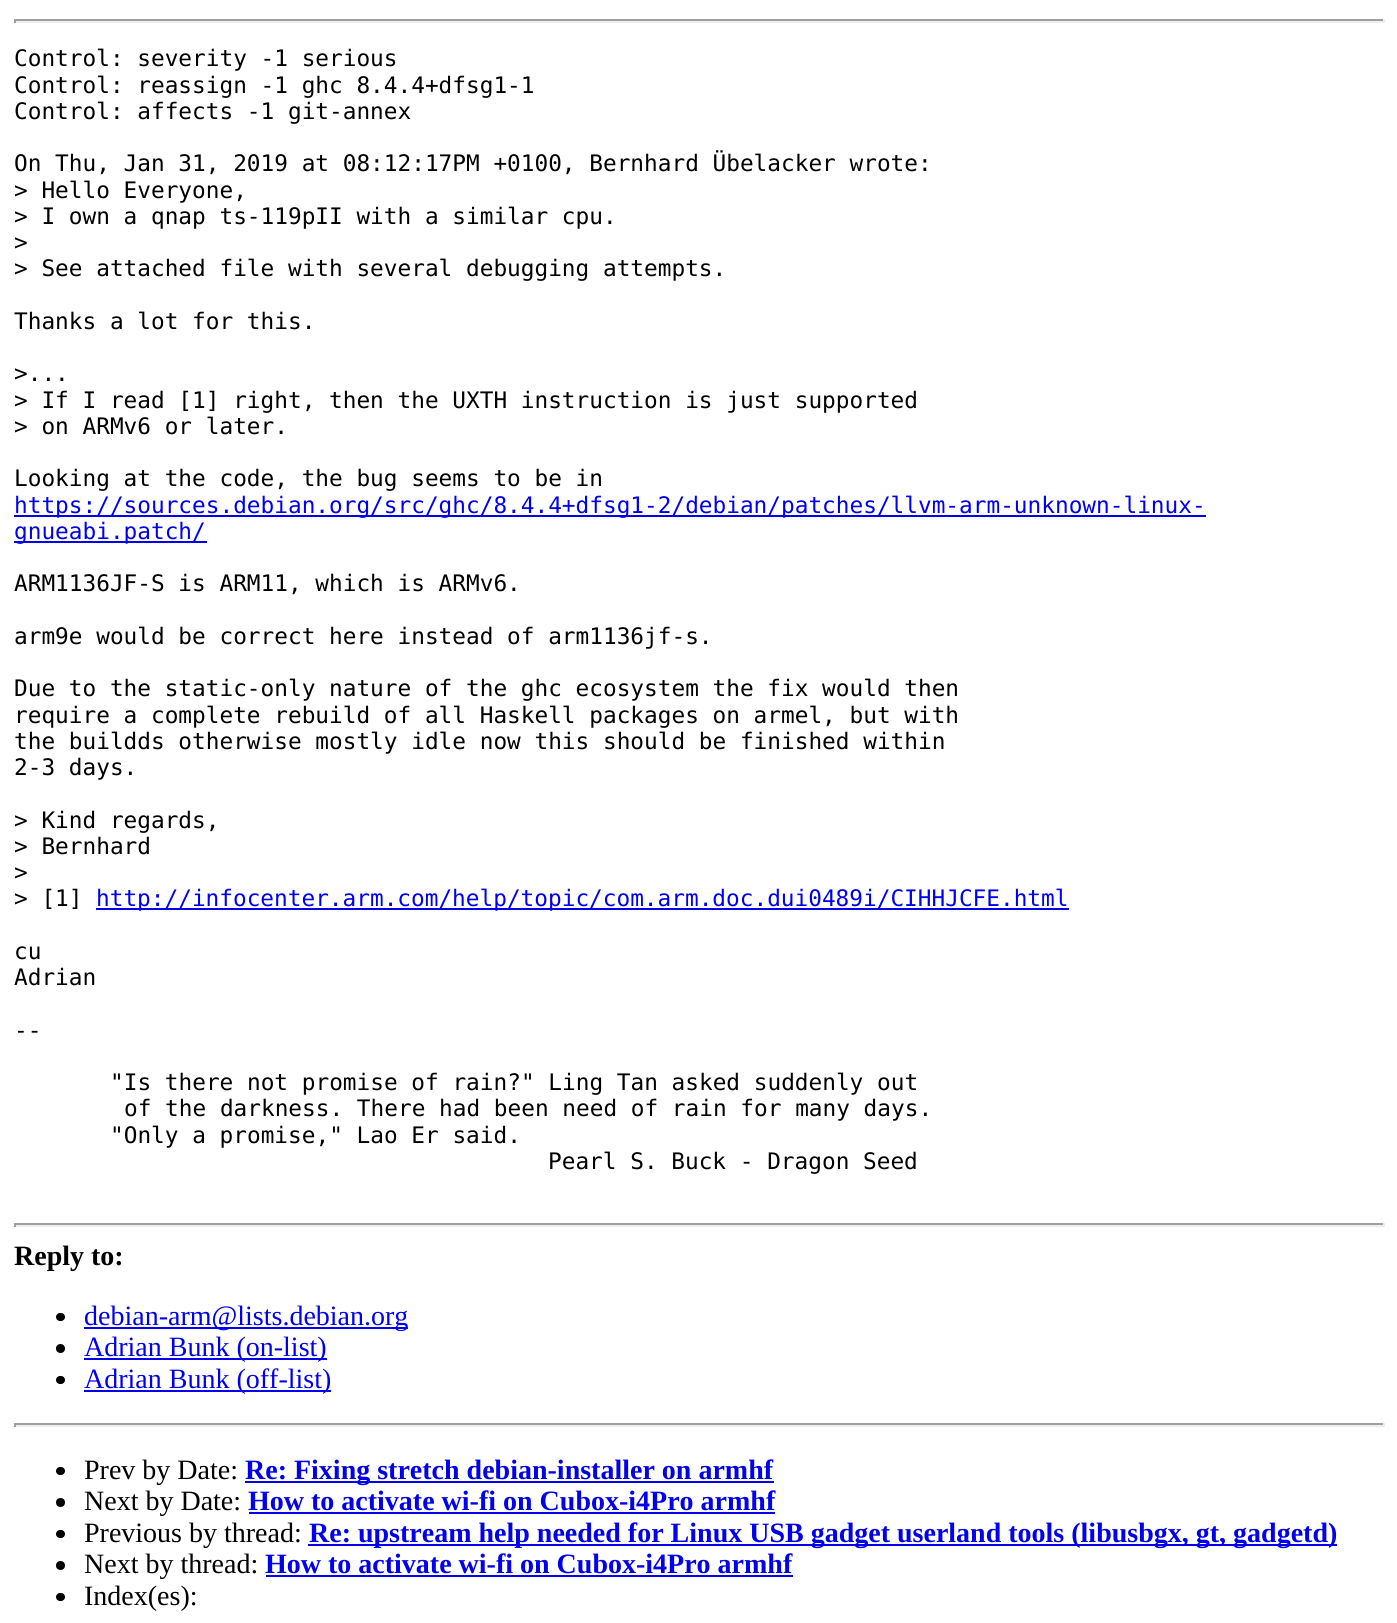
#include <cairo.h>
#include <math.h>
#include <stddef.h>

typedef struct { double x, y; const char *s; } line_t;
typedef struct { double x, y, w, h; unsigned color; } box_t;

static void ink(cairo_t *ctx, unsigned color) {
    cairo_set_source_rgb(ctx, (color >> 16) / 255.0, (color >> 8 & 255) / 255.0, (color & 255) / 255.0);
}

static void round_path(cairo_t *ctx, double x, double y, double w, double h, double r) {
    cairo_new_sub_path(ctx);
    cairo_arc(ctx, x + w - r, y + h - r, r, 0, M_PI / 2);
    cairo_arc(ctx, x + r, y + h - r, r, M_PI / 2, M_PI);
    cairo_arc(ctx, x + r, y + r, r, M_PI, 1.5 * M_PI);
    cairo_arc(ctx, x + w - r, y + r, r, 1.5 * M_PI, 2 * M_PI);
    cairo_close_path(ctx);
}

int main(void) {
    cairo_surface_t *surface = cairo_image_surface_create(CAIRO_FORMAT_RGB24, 1397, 1623);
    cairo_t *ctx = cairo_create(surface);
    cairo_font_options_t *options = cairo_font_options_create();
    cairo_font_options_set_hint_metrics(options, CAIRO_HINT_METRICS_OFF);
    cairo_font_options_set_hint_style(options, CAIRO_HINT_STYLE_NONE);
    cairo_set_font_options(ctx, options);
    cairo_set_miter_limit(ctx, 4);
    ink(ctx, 0xFFFFFF);
    cairo_paint(ctx);
    {
        static const box_t items[] = {
            {14, 19, 1370, 2, 0x9F9F9F},
            {1383, 19, 2, 4, 0xEEEEEE},
            {14, 21, 1370, 2, 0xEEEEEE},
            {14, 19, 2, 4, 0x9F9F9F},
        };
        for (size_t i = 0; i < sizeof items / sizeof *items; i++) {
            ink(ctx, items[i].color);
            cairo_rectangle(ctx, items[i].x, items[i].y, items[i].w, items[i].h);
            cairo_fill(ctx);
        }
    }
    cairo_select_font_face(ctx, "DejaVu Sans Mono", CAIRO_FONT_SLANT_NORMAL, CAIRO_FONT_WEIGHT_NORMAL);
    cairo_set_font_size(ctx, 22.75);
    ink(ctx, 0x000000);
    {
        static const line_t items[] = {
            {14, 66, "Control: severity -1 serious"},
            {14, 93, "Control: reassign -1 ghc 8.4.4+dfsg1-1"},
            {14, 119, "Control: affects -1 git-annex"},
            {14, 171, "On Thu, Jan 31, 2019 at 08:12:17PM +0100, Bernhard Übelacker wrote:"},
            {14, 198, "> Hello Everyone,"},
            {14, 224, "> I own a qnap ts-119pII with a similar cpu."},
            {14, 250, ">"},
            {14, 276, "> See attached file with several debugging attempts."},
            {14, 329, "Thanks a lot for this."},
            {14, 381, ">..."},
            {14, 408, "> If I read [1] right, then the UXTH instruction is just supported"},
            {14, 434, "> on ARMv6 or later."},
            {14, 486, "Looking at the code, the bug seems to be in"},
        };
        for (size_t i = 0; i < sizeof items / sizeof *items; i++) {
            cairo_move_to(ctx, items[i].x, items[i].y);
            cairo_show_text(ctx, items[i].s);
        }
    }
    ink(ctx, 0x0000EE);
    cairo_rectangle(ctx, 14, 515, 1192, 2);
    cairo_fill(ctx);
    cairo_move_to(ctx, 14, 513);
    cairo_show_text(ctx, "https://sources.debian.org/src/ghc/8.4.4+dfsg1-2/debian/patches/llvm-arm-unknown-linux-");
    cairo_rectangle(ctx, 14, 541, 193, 2);
    cairo_fill(ctx);
    cairo_move_to(ctx, 14, 539);
    cairo_show_text(ctx, "gnueabi.patch/");
    ink(ctx, 0x000000);
    {
        static const line_t items[] = {
            {14, 591, "ARM1136JF-S is ARM11, which is ARMv6."},
            {14, 644, "arm9e would be correct here instead of arm1136jf-s."},
            {14, 696, "Due to the static-only nature of the ghc ecosystem the fix would then"},
            {14, 723, "require a complete rebuild of all Haskell packages on armel, but with"},
            {14, 749, "the buildds otherwise mostly idle now this should be finished within"},
            {14, 775, "2-3 days."},
            {14, 828, "> Kind regards,"},
            {14, 854, "> Bernhard"},
            {14, 880, ">"},
            {14, 906, "> [1]"},
        };
        for (size_t i = 0; i < sizeof items / sizeof *items; i++) {
            cairo_move_to(ctx, items[i].x, items[i].y);
            cairo_show_text(ctx, items[i].s);
        }
    }
    ink(ctx, 0x0000EE);
    cairo_rectangle(ctx, 96, 908, 973, 2);
    cairo_fill(ctx);
    cairo_move_to(ctx, 96, 906);
    cairo_show_text(ctx, "http://infocenter.arm.com/help/topic/com.arm.doc.dui0489i/CIHHJCFE.html");
    ink(ctx, 0x000000);
    {
        static const line_t items[] = {
            {14, 959, "cu"},
            {14, 985, "Adrian"},
            {14, 1038, "--"},
            {110, 1090, "\"Is there not promise of rain?\" Ling Tan asked suddenly out"},
            {124, 1116, "of the darkness. There had been need of rain for many days."},
            {110, 1143, "\"Only a promise,\" Lao Er said."},
            {548, 1169, "Pearl S. Buck - Dragon Seed"},
        };
        for (size_t i = 0; i < sizeof items / sizeof *items; i++) {
            cairo_move_to(ctx, items[i].x, items[i].y);
            cairo_show_text(ctx, items[i].s);
        }
    }
    {
        static const box_t items[] = {
            {14, 1223, 1370, 2, 0x9F9F9F},
            {1383, 1223, 2, 4, 0xEEEEEE},
            {14, 1225, 1370, 2, 0xEEEEEE},
            {14, 1223, 2, 4, 0x9F9F9F},
        };
        for (size_t i = 0; i < sizeof items / sizeof *items; i++) {
            ink(ctx, items[i].color);
            cairo_rectangle(ctx, items[i].x, items[i].y, items[i].w, items[i].h);
            cairo_fill(ctx);
        }
    }
    cairo_select_font_face(ctx, "Liberation Serif", CAIRO_FONT_SLANT_NORMAL, CAIRO_FONT_WEIGHT_BOLD);
    cairo_set_font_size(ctx, 28);
    ink(ctx, 0x000000);
    cairo_move_to(ctx, 14, 1265);
    cairo_show_text(ctx, "Reply to:");
    round_path(ctx, 56, 1313, 9, 8, 4);
    cairo_fill(ctx);
    ink(ctx, 0x0000EE);
    cairo_rectangle(ctx, 84, 1327, 324, 2);
    cairo_fill(ctx);
    cairo_select_font_face(ctx, "Liberation Serif", CAIRO_FONT_SLANT_NORMAL, CAIRO_FONT_WEIGHT_NORMAL);
    cairo_move_to(ctx, 84, 1325);
    cairo_show_text(ctx, "debian-arm@lists.debian.org");
    ink(ctx, 0x000000);
    cairo_new_path(ctx);
    cairo_arc(ctx, 60.5, 1348.5, 4.5, 0, 2 * M_PI);
    cairo_fill(ctx);
    ink(ctx, 0x0000EE);
    cairo_rectangle(ctx, 84, 1358, 243, 2);
    cairo_fill(ctx);
    cairo_move_to(ctx, 84, 1356);
    cairo_show_text(ctx, "Adrian Bunk (on-list)");
    ink(ctx, 0x000000);
    round_path(ctx, 56, 1376, 9, 8, 4);
    cairo_fill(ctx);
    ink(ctx, 0x0000EE);
    cairo_rectangle(ctx, 84, 1390, 247, 2);
    cairo_fill(ctx);
    cairo_move_to(ctx, 84, 1388);
    cairo_show_text(ctx, "Adrian Bunk (off-list)");
    {
        static const box_t items[] = {
            {14, 1423, 1370, 2, 0x9F9F9F},
            {1383, 1423, 2, 4, 0xEEEEEE},
            {14, 1425, 1370, 2, 0xEEEEEE},
            {14, 1423, 2, 4, 0x9F9F9F},
        };
        for (size_t i = 0; i < sizeof items / sizeof *items; i++) {
            ink(ctx, items[i].color);
            cairo_rectangle(ctx, items[i].x, items[i].y, items[i].w, items[i].h);
            cairo_fill(ctx);
        }
    }
    ink(ctx, 0x000000);
    round_path(ctx, 56, 1467, 9, 8, 4);
    cairo_fill(ctx);
    cairo_move_to(ctx, 84, 1479);
    cairo_show_text(ctx, "Prev by Date:");
    ink(ctx, 0x0000EE);
    cairo_rectangle(ctx, 245, 1481, 529, 2);
    cairo_fill(ctx);
    cairo_select_font_face(ctx, "Liberation Serif", CAIRO_FONT_SLANT_NORMAL, CAIRO_FONT_WEIGHT_BOLD);
    cairo_move_to(ctx, 245, 1479);
    cairo_show_text(ctx, "Re: Fixing stretch debian-installer on armhf");
    ink(ctx, 0x000000);
    cairo_new_path(ctx);
    cairo_arc(ctx, 60.5, 1502.5, 4.5, 0, 2 * M_PI);
    cairo_fill(ctx);
    cairo_select_font_face(ctx, "Liberation Serif", CAIRO_FONT_SLANT_NORMAL, CAIRO_FONT_WEIGHT_NORMAL);
    cairo_move_to(ctx, 84, 1510);
    cairo_show_text(ctx, "Next by Date:");
    cairo_select_font_face(ctx, "Liberation Serif", CAIRO_FONT_SLANT_NORMAL, CAIRO_FONT_WEIGHT_BOLD);
    ink(ctx, 0x0000EE);
    cairo_move_to(ctx, 248, 1510);
    cairo_show_text(ctx, "How to activate wi-fi on Cubox-i4Pro armhf");
    cairo_rectangle(ctx, 249, 1512, 526, 2);
    cairo_fill(ctx);
    ink(ctx, 0x000000);
    round_path(ctx, 56, 1530, 9, 8, 4);
    cairo_fill(ctx);
    cairo_select_font_face(ctx, "Liberation Serif", CAIRO_FONT_SLANT_NORMAL, CAIRO_FONT_WEIGHT_NORMAL);
    cairo_move_to(ctx, 84, 1542);
    cairo_show_text(ctx, "Previous by thread:");
    ink(ctx, 0x0000EE);
    cairo_rectangle(ctx, 308, 1544, 1029, 2);
    cairo_fill(ctx);
    cairo_select_font_face(ctx, "Liberation Serif", CAIRO_FONT_SLANT_NORMAL, CAIRO_FONT_WEIGHT_BOLD);
    cairo_move_to(ctx, 309, 1542);
    cairo_show_text(ctx, "Re: upstream help needed for Linux USB gadget userland tools (libusbgx, gt, gadgetd)");
    ink(ctx, 0x000000);
    cairo_new_path(ctx);
    cairo_arc(ctx, 60.5, 1565.5, 4.5, 0, 2 * M_PI);
    cairo_fill(ctx);
    cairo_select_font_face(ctx, "Liberation Serif", CAIRO_FONT_SLANT_NORMAL, CAIRO_FONT_WEIGHT_NORMAL);
    cairo_move_to(ctx, 84, 1573);
    cairo_show_text(ctx, "Next by thread:");
    cairo_select_font_face(ctx, "Liberation Serif", CAIRO_FONT_SLANT_NORMAL, CAIRO_FONT_WEIGHT_BOLD);
    ink(ctx, 0x0000EE);
    cairo_move_to(ctx, 265, 1573);
    cairo_show_text(ctx, "How to activate wi-fi on Cubox-i4Pro armhf");
    cairo_rectangle(ctx, 266, 1575, 527, 2);
    cairo_fill(ctx);
    ink(ctx, 0x000000);
    round_path(ctx, 56, 1593, 9, 8, 4);
    cairo_fill(ctx);
    cairo_select_font_face(ctx, "Liberation Serif", CAIRO_FONT_SLANT_NORMAL, CAIRO_FONT_WEIGHT_NORMAL);
    cairo_move_to(ctx, 84, 1605);
    cairo_show_text(ctx, "Index(es):");
    cairo_surface_write_to_png(surface, "image.png");
    cairo_font_options_destroy(options);
    cairo_destroy(ctx);
    cairo_surface_destroy(surface);
    return 0;
}
